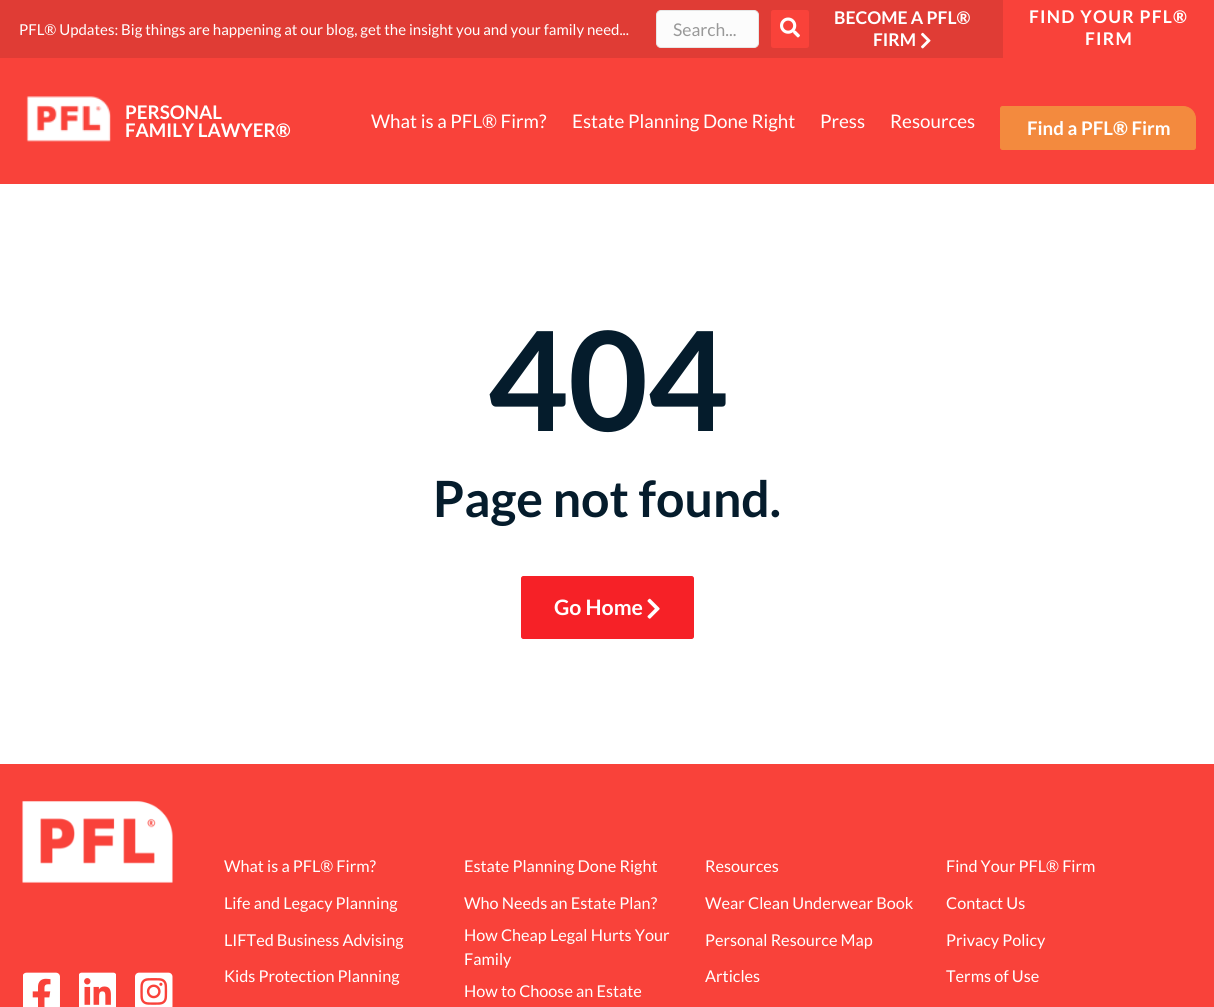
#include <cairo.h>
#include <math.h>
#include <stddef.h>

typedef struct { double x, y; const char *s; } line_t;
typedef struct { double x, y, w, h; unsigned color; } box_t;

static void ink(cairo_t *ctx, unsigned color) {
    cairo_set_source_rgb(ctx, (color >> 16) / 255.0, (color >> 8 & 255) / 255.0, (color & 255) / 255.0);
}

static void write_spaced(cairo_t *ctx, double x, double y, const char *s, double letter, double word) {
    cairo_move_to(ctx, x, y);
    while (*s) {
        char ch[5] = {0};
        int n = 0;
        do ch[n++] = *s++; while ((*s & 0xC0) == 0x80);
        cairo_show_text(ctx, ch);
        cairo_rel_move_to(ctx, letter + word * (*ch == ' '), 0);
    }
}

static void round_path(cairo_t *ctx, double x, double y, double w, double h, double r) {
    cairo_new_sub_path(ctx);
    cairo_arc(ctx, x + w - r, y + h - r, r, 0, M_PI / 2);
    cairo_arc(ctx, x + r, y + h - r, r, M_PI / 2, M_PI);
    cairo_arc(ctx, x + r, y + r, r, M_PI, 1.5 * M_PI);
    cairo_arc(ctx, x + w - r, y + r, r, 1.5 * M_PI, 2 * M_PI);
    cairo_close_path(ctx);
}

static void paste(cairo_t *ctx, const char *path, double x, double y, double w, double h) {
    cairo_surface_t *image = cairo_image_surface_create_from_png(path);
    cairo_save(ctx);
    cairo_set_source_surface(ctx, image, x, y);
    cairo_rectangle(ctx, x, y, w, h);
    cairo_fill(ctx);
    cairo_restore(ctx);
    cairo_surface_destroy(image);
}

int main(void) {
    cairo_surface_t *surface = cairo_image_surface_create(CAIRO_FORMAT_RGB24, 1214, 1007);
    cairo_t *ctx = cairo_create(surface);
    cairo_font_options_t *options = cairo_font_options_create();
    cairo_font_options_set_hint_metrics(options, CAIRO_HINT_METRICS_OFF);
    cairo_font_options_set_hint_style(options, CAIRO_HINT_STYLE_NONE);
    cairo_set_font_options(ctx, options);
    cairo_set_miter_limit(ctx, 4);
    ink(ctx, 0xFFFFFF);
    cairo_paint(ctx);
    {
        static const box_t items[] = {
            {0, 58, 1214, 126, 0xF9423A},
            {0, 0, 1003, 58, 0xE03C35},
            {1003, 0, 211, 58, 0xF9423A},
        };
        for (size_t i = 0; i < sizeof items / sizeof *items; i++) {
            ink(ctx, items[i].color);
            cairo_rectangle(ctx, items[i].x, items[i].y, items[i].w, items[i].h);
            cairo_fill(ctx);
        }
    }
    cairo_select_font_face(ctx, "Lato", CAIRO_FONT_SLANT_NORMAL, CAIRO_FONT_WEIGHT_BOLD);
    cairo_set_font_size(ctx, 17.5);
    ink(ctx, 0xFFFFFF);
    write_spaced(ctx, 1029, 23, "FIND YOUR PFL®", 1.25, 0);
    write_spaced(ctx, 1085, 45, "FIRM", 1.25, 0);
    cairo_select_font_face(ctx, "Lato", CAIRO_FONT_SLANT_NORMAL, CAIRO_FONT_WEIGHT_NORMAL);
    cairo_set_font_size(ctx, 15);
    cairo_move_to(ctx, 19, 35);
    cairo_show_text(ctx, "PFL® Updates: Big things are happening at our blog, get the insight you and your family need...");
    ink(ctx, 0xFCFCFC);
    round_path(ctx, 656.5, 10.5, 102, 37, 4.5);
    cairo_fill_preserve(ctx);
    ink(ctx, 0xE6E6E6);
    cairo_set_line_width(ctx, 1);
    cairo_stroke(ctx);
    cairo_set_font_size(ctx, 17.5);
    ink(ctx, 0x999999);
    cairo_move_to(ctx, 673, 36);
    cairo_show_text(ctx, "Search...");
    ink(ctx, 0xF9423A);
    round_path(ctx, 771, 10, 38, 38, 2.5);
    cairo_fill(ctx);
    paste(ctx, "media/1.png", 780, 17, 20, 21);
    cairo_select_font_face(ctx, "Lato", CAIRO_FONT_SLANT_NORMAL, CAIRO_FONT_WEIGHT_BOLD);
    ink(ctx, 0xFFFFFF);
    cairo_move_to(ctx, 834, 24);
    cairo_show_text(ctx, "BECOME A PFL®");
    cairo_move_to(ctx, 873, 46);
    cairo_show_text(ctx, "FIRM");
    paste(ctx, "media/2.png", 921, 32, 10, 17);
    paste(ctx, "media/3.png", 26, 96, 85, 46);
    cairo_set_font_size(ctx, 18.75);
    cairo_move_to(ctx, 125, 119);
    cairo_show_text(ctx, "PERSONAL");
    cairo_move_to(ctx, 125, 137);
    cairo_show_text(ctx, "FAMILY LAWYER®");
    cairo_select_font_face(ctx, "Lato", CAIRO_FONT_SLANT_NORMAL, CAIRO_FONT_WEIGHT_NORMAL);
    {
        static const line_t items[] = {
            {371, 128, "What is a PFL® Firm?"},
            {572, 128, "Estate Planning Done Right"},
            {820, 128, "Press"},
            {890, 128, "Resources"},
        };
        for (size_t i = 0; i < sizeof items / sizeof *items; i++) {
            cairo_move_to(ctx, items[i].x, items[i].y);
            cairo_show_text(ctx, items[i].s);
        }
    }
    ink(ctx, 0xF38A3E);
    cairo_new_path(ctx);
    cairo_move_to(ctx, 1002.5, 106.5);
    cairo_line_to(ctx, 1183, 106.5);
    cairo_curve_to(ctx, 1190, 106.5, 1195.5, 112, 1195.5, 119);
    cairo_line_to(ctx, 1195.5, 147.5);
    cairo_curve_to(ctx, 1195.5, 148.5, 1194.5, 149.5, 1193.5, 149.5);
    cairo_line_to(ctx, 1002.5, 149.5);
    cairo_curve_to(ctx, 1001.5, 149.5, 1000.5, 148.5, 1000.5, 147.5);
    cairo_line_to(ctx, 1000.5, 108.5);
    cairo_curve_to(ctx, 1000.5, 107.5, 1001.5, 106.5, 1002.5, 106.5);
    cairo_close_path(ctx);
    cairo_fill_preserve(ctx);
    cairo_stroke(ctx);
    cairo_select_font_face(ctx, "Lato", CAIRO_FONT_SLANT_NORMAL, CAIRO_FONT_WEIGHT_BOLD);
    ink(ctx, 0xFFFFFF);
    cairo_move_to(ctx, 1027, 135);
    cairo_show_text(ctx, "Find a PFL® Firm");
    cairo_set_font_size(ctx, 138);
    ink(ctx, 0x051C2C);
    cairo_move_to(ctx, 488, 431);
    cairo_show_text(ctx, "404");
    cairo_set_font_size(ctx, 50);
    cairo_move_to(ctx, 433, 517);
    cairo_show_text(ctx, "Page not found.");
    ink(ctx, 0xF62127);
    round_path(ctx, 521.5, 576.5, 172, 62, 2);
    cairo_fill_preserve(ctx);
    cairo_stroke(ctx);
    cairo_set_font_size(ctx, 21.25);
    ink(ctx, 0xFFFFFF);
    cairo_move_to(ctx, 554, 615);
    cairo_show_text(ctx, "Go Home");
    paste(ctx, "media/4.png", 647, 598, 13, 21);
    ink(ctx, 0xF9423A);
    cairo_rectangle(ctx, 0, 764, 1214, 243);
    cairo_fill(ctx);
    paste(ctx, "media/5.png", 22, 801, 151, 82);
    paste(ctx, "media/6.png", 23, 972, 37, 35);
    paste(ctx, "media/7.png", 79, 972, 37, 35);
    paste(ctx, "media/8.png", 135, 972, 38, 35);
    cairo_select_font_face(ctx, "Lato", CAIRO_FONT_SLANT_NORMAL, CAIRO_FONT_WEIGHT_NORMAL);
    cairo_set_font_size(ctx, 16.25);
    ink(ctx, 0xFFFFFF);
    {
        static const line_t items[] = {
            {224, 872, "What is a PFL® Firm?"},
            {224, 909, "Life and Legacy Planning"},
            {224, 946, "LIFTed Business Advising"},
            {224, 982, "Kids Protection Planning"},
            {464, 872, "Estate Planning Done Right"},
            {464, 909, "Who Needs an Estate Plan?"},
            {464, 941, "How Cheap Legal Hurts Your"},
            {464, 965, "Family"},
            {464, 997, "How to Choose an Estate"},
            {705, 872, "Resources"},
            {705, 909, "Wear Clean Underwear Book"},
            {705, 946, "Personal Resource Map"},
            {705, 982, "Articles"},
            {946, 872, "Find Your PFL® Firm"},
            {946, 909, "Contact Us"},
            {946, 946, "Privacy Policy"},
            {946, 982, "Terms of Use"},
        };
        for (size_t i = 0; i < sizeof items / sizeof *items; i++) {
            cairo_move_to(ctx, items[i].x, items[i].y);
            cairo_show_text(ctx, items[i].s);
        }
    }
    cairo_surface_write_to_png(surface, "image.png");
    cairo_font_options_destroy(options);
    cairo_destroy(ctx);
    cairo_surface_destroy(surface);
    return 0;
}
